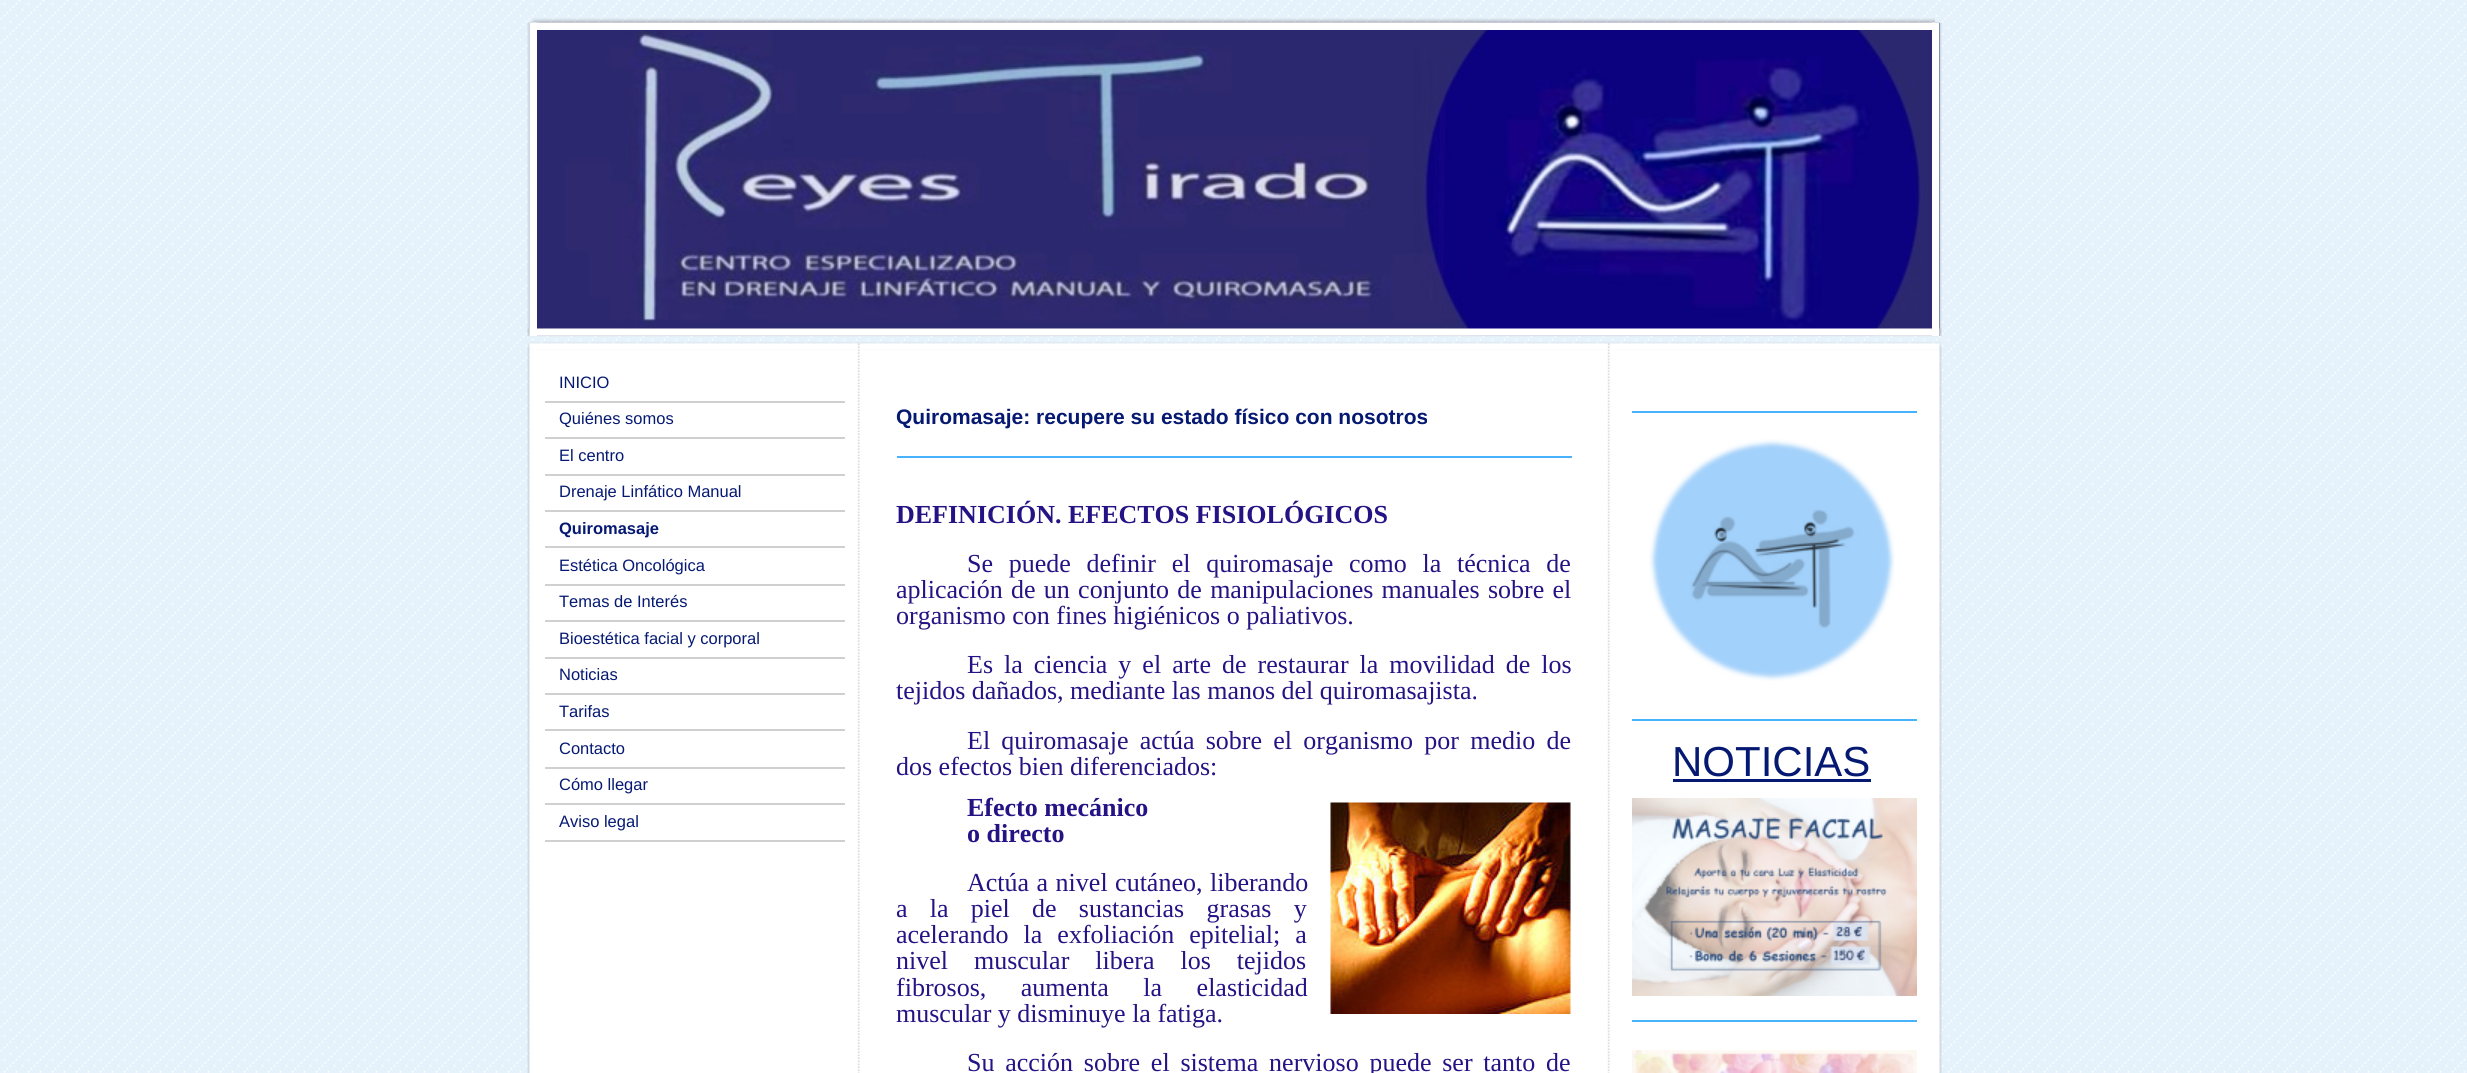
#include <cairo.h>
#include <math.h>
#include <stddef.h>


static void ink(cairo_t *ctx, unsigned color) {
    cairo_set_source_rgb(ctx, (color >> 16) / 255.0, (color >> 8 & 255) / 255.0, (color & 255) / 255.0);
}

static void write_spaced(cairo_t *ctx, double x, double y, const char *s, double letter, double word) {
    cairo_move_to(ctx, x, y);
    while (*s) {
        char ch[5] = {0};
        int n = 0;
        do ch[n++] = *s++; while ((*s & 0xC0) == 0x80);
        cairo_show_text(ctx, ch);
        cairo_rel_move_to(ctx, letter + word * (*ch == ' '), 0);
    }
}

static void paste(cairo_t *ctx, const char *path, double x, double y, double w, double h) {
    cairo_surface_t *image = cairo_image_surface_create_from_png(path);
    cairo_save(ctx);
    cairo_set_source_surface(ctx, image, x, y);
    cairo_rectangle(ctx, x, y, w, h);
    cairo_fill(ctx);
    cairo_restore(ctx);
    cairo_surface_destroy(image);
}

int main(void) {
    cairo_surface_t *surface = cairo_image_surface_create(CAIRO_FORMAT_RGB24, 2467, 1073);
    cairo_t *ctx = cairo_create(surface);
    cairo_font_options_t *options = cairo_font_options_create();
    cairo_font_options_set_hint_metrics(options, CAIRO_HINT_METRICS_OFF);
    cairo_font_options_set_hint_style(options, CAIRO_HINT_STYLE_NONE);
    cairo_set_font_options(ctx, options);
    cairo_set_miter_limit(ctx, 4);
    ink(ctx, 0xE6F2FB);
    cairo_paint(ctx);
    paste(ctx, "media/1.png", 0, 0, 2467, 1073);
    ink(ctx, 0x051972);
    cairo_rectangle(ctx, 1939, 23, 1, 313);
    cairo_fill(ctx);
    paste(ctx, "media/4.png", 529, 22, 1411, 314);
    paste(ctx, "media/2.png", 530, 18, 1405, 12);
    paste(ctx, "media/3.png", 527, 22, 10, 314);
    paste(ctx, "media/5.png", 1932, 22, 10, 314);
    paste(ctx, "media/6.png", 527, 328, 1415, 9);
    paste(ctx, "media/7.png", 527, 342, 1415, 8);
    paste(ctx, "media/8.png", 527, 349, 1415, 724);
    ink(ctx, 0xCFD0D1);
    cairo_rectangle(ctx, 545, 401, 300, 2);
    cairo_fill(ctx);
    cairo_select_font_face(ctx, "Liberation Sans", CAIRO_FONT_SLANT_NORMAL, CAIRO_FONT_WEIGHT_NORMAL);
    cairo_set_font_size(ctx, 16.5);
    ink(ctx, 0x051972);
    cairo_move_to(ctx, 559, 388);
    cairo_show_text(ctx, "INICIO");
    ink(ctx, 0xCFD0D1);
    cairo_rectangle(ctx, 545, 437, 300, 2);
    cairo_fill(ctx);
    ink(ctx, 0x051972);
    cairo_move_to(ctx, 559, 424);
    cairo_show_text(ctx, "Quiénes somos");
    ink(ctx, 0xCFD0D1);
    cairo_rectangle(ctx, 545, 474, 300, 2);
    cairo_fill(ctx);
    ink(ctx, 0x051972);
    cairo_move_to(ctx, 559, 461);
    cairo_show_text(ctx, "El centro");
    ink(ctx, 0xCFD0D1);
    cairo_rectangle(ctx, 545, 510, 300, 2);
    cairo_fill(ctx);
    ink(ctx, 0x051972);
    cairo_move_to(ctx, 559, 497);
    cairo_show_text(ctx, "Drenaje Linfático Manual");
    ink(ctx, 0xCFD0D1);
    cairo_rectangle(ctx, 545, 546, 300, 2);
    cairo_fill(ctx);
    cairo_select_font_face(ctx, "Liberation Sans", CAIRO_FONT_SLANT_NORMAL, CAIRO_FONT_WEIGHT_BOLD);
    ink(ctx, 0x051972);
    cairo_move_to(ctx, 559, 534);
    cairo_show_text(ctx, "Quiromasaje");
    ink(ctx, 0xCFD0D1);
    cairo_rectangle(ctx, 545, 584, 300, 2);
    cairo_fill(ctx);
    cairo_select_font_face(ctx, "Liberation Sans", CAIRO_FONT_SLANT_NORMAL, CAIRO_FONT_WEIGHT_NORMAL);
    ink(ctx, 0x051972);
    cairo_move_to(ctx, 559, 571);
    cairo_show_text(ctx, "Estética Oncológica");
    ink(ctx, 0xCFD0D1);
    cairo_rectangle(ctx, 545, 620, 300, 2);
    cairo_fill(ctx);
    ink(ctx, 0x051972);
    cairo_move_to(ctx, 559, 607);
    cairo_show_text(ctx, "Temas de Interés");
    ink(ctx, 0xCFD0D1);
    cairo_rectangle(ctx, 545, 657, 300, 2);
    cairo_fill(ctx);
    ink(ctx, 0x051972);
    cairo_move_to(ctx, 559, 644);
    cairo_show_text(ctx, "Bioestética facial y corporal");
    ink(ctx, 0xCFD0D1);
    cairo_rectangle(ctx, 545, 693, 300, 2);
    cairo_fill(ctx);
    ink(ctx, 0x051972);
    cairo_move_to(ctx, 559, 680);
    cairo_show_text(ctx, "Noticias");
    ink(ctx, 0xCFD0D1);
    cairo_rectangle(ctx, 545, 729, 300, 2);
    cairo_fill(ctx);
    ink(ctx, 0x051972);
    cairo_move_to(ctx, 559, 717);
    cairo_show_text(ctx, "Tarifas");
    ink(ctx, 0xCFD0D1);
    cairo_rectangle(ctx, 545, 767, 300, 2);
    cairo_fill(ctx);
    ink(ctx, 0x051972);
    cairo_move_to(ctx, 559, 754);
    cairo_show_text(ctx, "Contacto");
    ink(ctx, 0xCFD0D1);
    cairo_rectangle(ctx, 545, 803, 300, 2);
    cairo_fill(ctx);
    ink(ctx, 0x051972);
    cairo_move_to(ctx, 559, 790);
    cairo_show_text(ctx, "Cómo llegar");
    ink(ctx, 0xCFD0D1);
    cairo_rectangle(ctx, 545, 840, 300, 2);
    cairo_fill(ctx);
    ink(ctx, 0x051972);
    cairo_move_to(ctx, 559, 827);
    cairo_show_text(ctx, "Aviso legal");
    cairo_select_font_face(ctx, "Liberation Sans", CAIRO_FONT_SLANT_NORMAL, CAIRO_FONT_WEIGHT_BOLD);
    cairo_set_font_size(ctx, 21);
    cairo_move_to(ctx, 896, 424);
    cairo_show_text(ctx, "Quiromasaje: recupere su estado físico con nosotros");
    ink(ctx, 0x48B2FD);
    cairo_rectangle(ctx, 897, 456, 675, 2);
    cairo_fill(ctx);
    cairo_select_font_face(ctx, "Liberation Serif", CAIRO_FONT_SLANT_NORMAL, CAIRO_FONT_WEIGHT_BOLD);
    cairo_set_font_size(ctx, 26);
    ink(ctx, 0x251284);
    cairo_move_to(ctx, 896, 523);
    cairo_show_text(ctx, "DEFINICIÓN. EFECTOS FISIOLÓGICOS");
    cairo_select_font_face(ctx, "Liberation Serif", CAIRO_FONT_SLANT_NORMAL, CAIRO_FONT_WEIGHT_NORMAL);
    write_spaced(ctx, 967, 572, "Se puede definir el quiromasaje como la técnica de", 0, 9.25);
    write_spaced(ctx, 896, 598, "aplicación de un conjunto de manipulaciones manuales sobre el", 0, 1.75);
    cairo_move_to(ctx, 896, 624);
    cairo_show_text(ctx, "organismo con fines higiénicos o paliativos.");
    write_spaced(ctx, 967, 673, "Es la ciencia y el arte de restaurar la movilidad de los", 0, 4.5);
    cairo_move_to(ctx, 896, 699);
    cairo_show_text(ctx, "tejidos dañados, mediante las manos del quiromasajista.");
    write_spaced(ctx, 967, 749, "El quiromasaje actúa sobre el organismo por medio de", 0, 4.75);
    cairo_move_to(ctx, 896, 775);
    cairo_show_text(ctx, "dos efectos bien diferenciados:");
    cairo_select_font_face(ctx, "Liberation Serif", CAIRO_FONT_SLANT_NORMAL, CAIRO_FONT_WEIGHT_BOLD);
    cairo_move_to(ctx, 967, 816);
    cairo_show_text(ctx, "Efecto mecánico");
    cairo_move_to(ctx, 967, 842);
    cairo_show_text(ctx, "o directo");
    cairo_select_font_face(ctx, "Liberation Serif", CAIRO_FONT_SLANT_NORMAL, CAIRO_FONT_WEIGHT_NORMAL);
    write_spaced(ctx, 967, 891, "Actúa a nivel cutáneo, liberando", 0, 1);
    write_spaced(ctx, 896, 917, "a la piel de sustancias grasas y", 0, 15.75);
    write_spaced(ctx, 896, 943, "acelerando la exfoliación epitelial; a", 0, 8.5);
    write_spaced(ctx, 896, 969, "nivel muscular libera los tejidos", 0, 19.5);
    write_spaced(ctx, 896, 996, "fibrosos, aumenta la elasticidad", 0, 28);
    cairo_move_to(ctx, 896, 1022);
    cairo_show_text(ctx, "muscular y disminuye la fatiga.");
    write_spaced(ctx, 967, 1071, "Su acción sobre el sistema nervioso puede ser tanto de", 0, 4.25);
    paste(ctx, "media/9.png", 1330, 802, 241, 212);
    ink(ctx, 0x48B2FD);
    cairo_rectangle(ctx, 1632, 411, 285, 2);
    cairo_fill(ctx);
    paste(ctx, "media/10.png", 1649, 439, 246, 242);
    cairo_rectangle(ctx, 1632, 719, 285, 2);
    cairo_fill(ctx);
    cairo_select_font_face(ctx, "Liberation Sans", CAIRO_FONT_SLANT_NORMAL, CAIRO_FONT_WEIGHT_NORMAL);
    cairo_set_font_size(ctx, 42);
    ink(ctx, 0x051972);
    cairo_move_to(ctx, 1672, 776);
    cairo_show_text(ctx, "NOTICIAS");
    cairo_rectangle(ctx, 1673, 779, 198, 3);
    cairo_fill(ctx);
    paste(ctx, "media/11.png", 1632, 798, 285, 198);
    ink(ctx, 0x48B2FD);
    cairo_rectangle(ctx, 1632, 1020, 285, 2);
    cairo_fill(ctx);
    paste(ctx, "media/12.png", 1632, 1050, 285, 23);
    cairo_surface_write_to_png(surface, "image.png");
    cairo_font_options_destroy(options);
    cairo_destroy(ctx);
    cairo_surface_destroy(surface);
    return 0;
}
